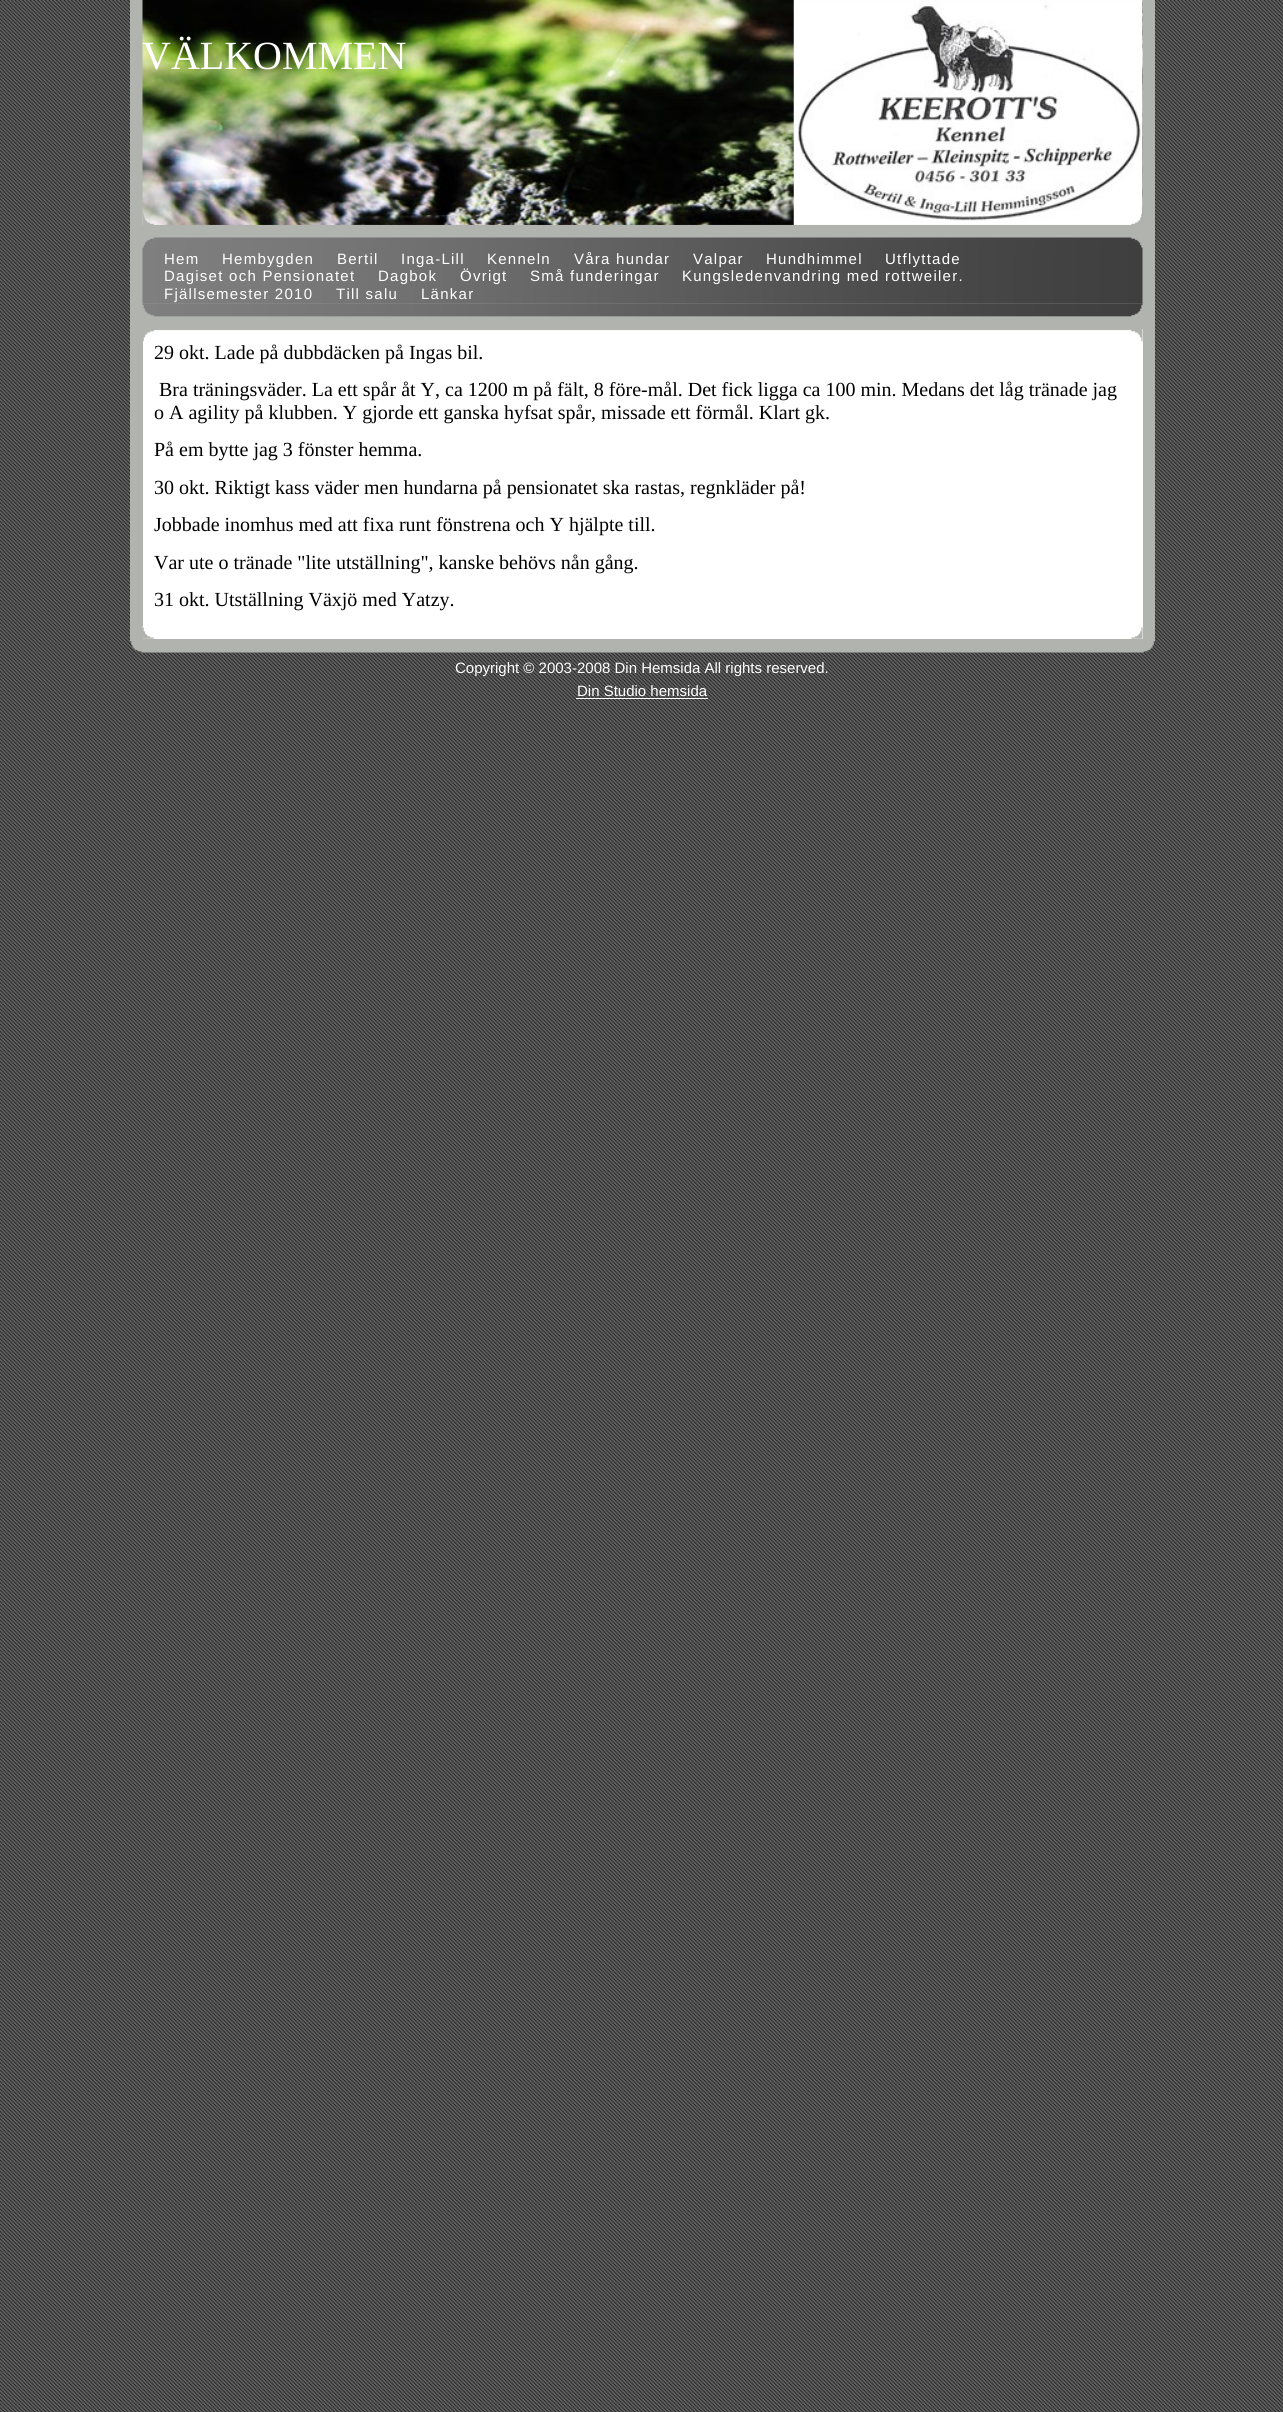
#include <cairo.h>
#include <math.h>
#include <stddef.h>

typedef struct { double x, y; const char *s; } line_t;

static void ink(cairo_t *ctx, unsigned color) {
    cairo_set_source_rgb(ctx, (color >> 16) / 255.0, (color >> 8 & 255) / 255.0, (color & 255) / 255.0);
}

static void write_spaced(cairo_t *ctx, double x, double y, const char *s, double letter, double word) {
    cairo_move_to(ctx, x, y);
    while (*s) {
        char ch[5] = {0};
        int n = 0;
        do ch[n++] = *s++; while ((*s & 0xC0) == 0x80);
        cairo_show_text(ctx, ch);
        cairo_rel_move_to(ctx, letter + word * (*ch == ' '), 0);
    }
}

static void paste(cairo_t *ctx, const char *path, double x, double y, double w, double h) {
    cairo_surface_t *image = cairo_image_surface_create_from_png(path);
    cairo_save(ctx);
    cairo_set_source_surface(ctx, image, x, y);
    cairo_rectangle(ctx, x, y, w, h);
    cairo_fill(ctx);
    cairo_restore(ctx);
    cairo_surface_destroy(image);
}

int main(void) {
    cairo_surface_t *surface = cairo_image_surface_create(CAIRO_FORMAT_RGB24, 1283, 2412);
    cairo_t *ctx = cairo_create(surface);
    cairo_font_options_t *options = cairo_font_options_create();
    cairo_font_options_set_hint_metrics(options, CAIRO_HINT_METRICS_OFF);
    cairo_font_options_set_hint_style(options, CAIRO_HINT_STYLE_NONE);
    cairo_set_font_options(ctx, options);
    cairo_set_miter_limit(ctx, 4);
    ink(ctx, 0xFFFFFF);
    cairo_paint(ctx);
    paste(ctx, "media/1.png", 0, 0, 1283, 2412);
    ink(ctx, 0xB1B3AF);
    cairo_rectangle(ctx, 130, 0, 1025, 640);
    cairo_fill(ctx);
    paste(ctx, "media/2.png", 142, 0, 1001, 225);
    paste(ctx, "media/3.png", 793, 0, 350, 225);
    cairo_select_font_face(ctx, "Liberation Serif", CAIRO_FONT_SLANT_NORMAL, CAIRO_FONT_WEIGHT_NORMAL);
    cairo_set_font_size(ctx, 40);
    ink(ctx, 0xFFFFFF);
    cairo_move_to(ctx, 142, 69);
    cairo_show_text(ctx, "VÄLKOMMEN");
    paste(ctx, "media/4.png", 142, 213, 1001, 37);
    paste(ctx, "media/5.png", 142, 250, 1001, 54);
    cairo_select_font_face(ctx, "Liberation Sans", CAIRO_FONT_SLANT_NORMAL, CAIRO_FONT_WEIGHT_NORMAL);
    cairo_set_font_size(ctx, 15);
    {
        static const line_t items[] = {
            {164, 264, "Hem"},
            {222, 264, "Hembygden"},
            {337, 264, "Bertil"},
            {401, 264, "Inga-Lill"},
            {487, 264, "Kenneln"},
            {574, 264, "Våra hundar"},
            {693, 264, "Valpar"},
            {766, 264, "Hundhimmel"},
            {885, 264, "Utflyttade"},
            {164, 281, "Dagiset och Pensionatet"},
            {378, 281, "Dagbok"},
            {460, 281, "Övrigt"},
            {530, 281, "Små funderingar"},
            {682, 281, "Kungsledenvandring med rottweiler."},
            {164, 299, "Fjällsemester 2010"},
            {336, 299, "Till salu"},
            {421, 299, "Länkar"},
        };
        for (size_t i = 0; i < sizeof items / sizeof *items; i++) {
            write_spaced(ctx, items[i].x, items[i].y, items[i].s, 1.25, 0);
        }
    }
    paste(ctx, "media/6.png", 142, 303, 1001, 14);
    cairo_rectangle(ctx, 143, 329, 1000, 310);
    cairo_fill(ctx);
    paste(ctx, "media/7.png", 142, 626, 1001, 13);
    paste(ctx, "media/8.png", 143, 329, 1000, 13);
    cairo_select_font_face(ctx, "Liberation Serif", CAIRO_FONT_SLANT_NORMAL, CAIRO_FONT_WEIGHT_NORMAL);
    cairo_set_font_size(ctx, 20);
    ink(ctx, 0x000000);
    {
        static const line_t items[] = {
            {154, 359, "29 okt. Lade på dubbdäcken på Ingas bil."},
            {159, 396, "Bra träningsväder. La ett spår åt Y, ca 1200 m på fält, 8 före-mål. Det fick ligga ca 100 min. Medans det låg tränade jag"},
            {154, 419, "o A agility på klubben. Y gjorde ett ganska hyfsat spår, missade ett förmål. Klart gk."},
            {154, 456, "På em bytte jag 3 fönster hemma."},
            {154, 494, "30 okt. Riktigt kass väder men hundarna på pensionatet ska rastas, regnkläder på!"},
            {154, 531, "Jobbade inomhus med att fixa runt fönstrena och Y hjälpte till."},
            {154, 569, "Var ute o tränade \"lite utställning\", kanske behövs nån gång."},
            {154, 606, "31 okt. Utställning Växjö med Yatzy."},
        };
        for (size_t i = 0; i < sizeof items / sizeof *items; i++) {
            cairo_move_to(ctx, items[i].x, items[i].y);
            cairo_show_text(ctx, items[i].s);
        }
    }
    paste(ctx, "media/9.png", 130, 640, 1025, 13);
    cairo_select_font_face(ctx, "Liberation Sans", CAIRO_FONT_SLANT_NORMAL, CAIRO_FONT_WEIGHT_NORMAL);
    cairo_set_font_size(ctx, 15);
    ink(ctx, 0xFFFFFF);
    cairo_move_to(ctx, 455, 673);
    cairo_show_text(ctx, "Copyright © 2003-2008 Din Hemsida All rights reserved.");
    cairo_move_to(ctx, 577, 696);
    cairo_show_text(ctx, "Din Studio hemsida");
    cairo_rectangle(ctx, 576, 698, 132, 1);
    cairo_fill(ctx);
    cairo_surface_write_to_png(surface, "image.png");
    cairo_font_options_destroy(options);
    cairo_destroy(ctx);
    cairo_surface_destroy(surface);
    return 0;
}
